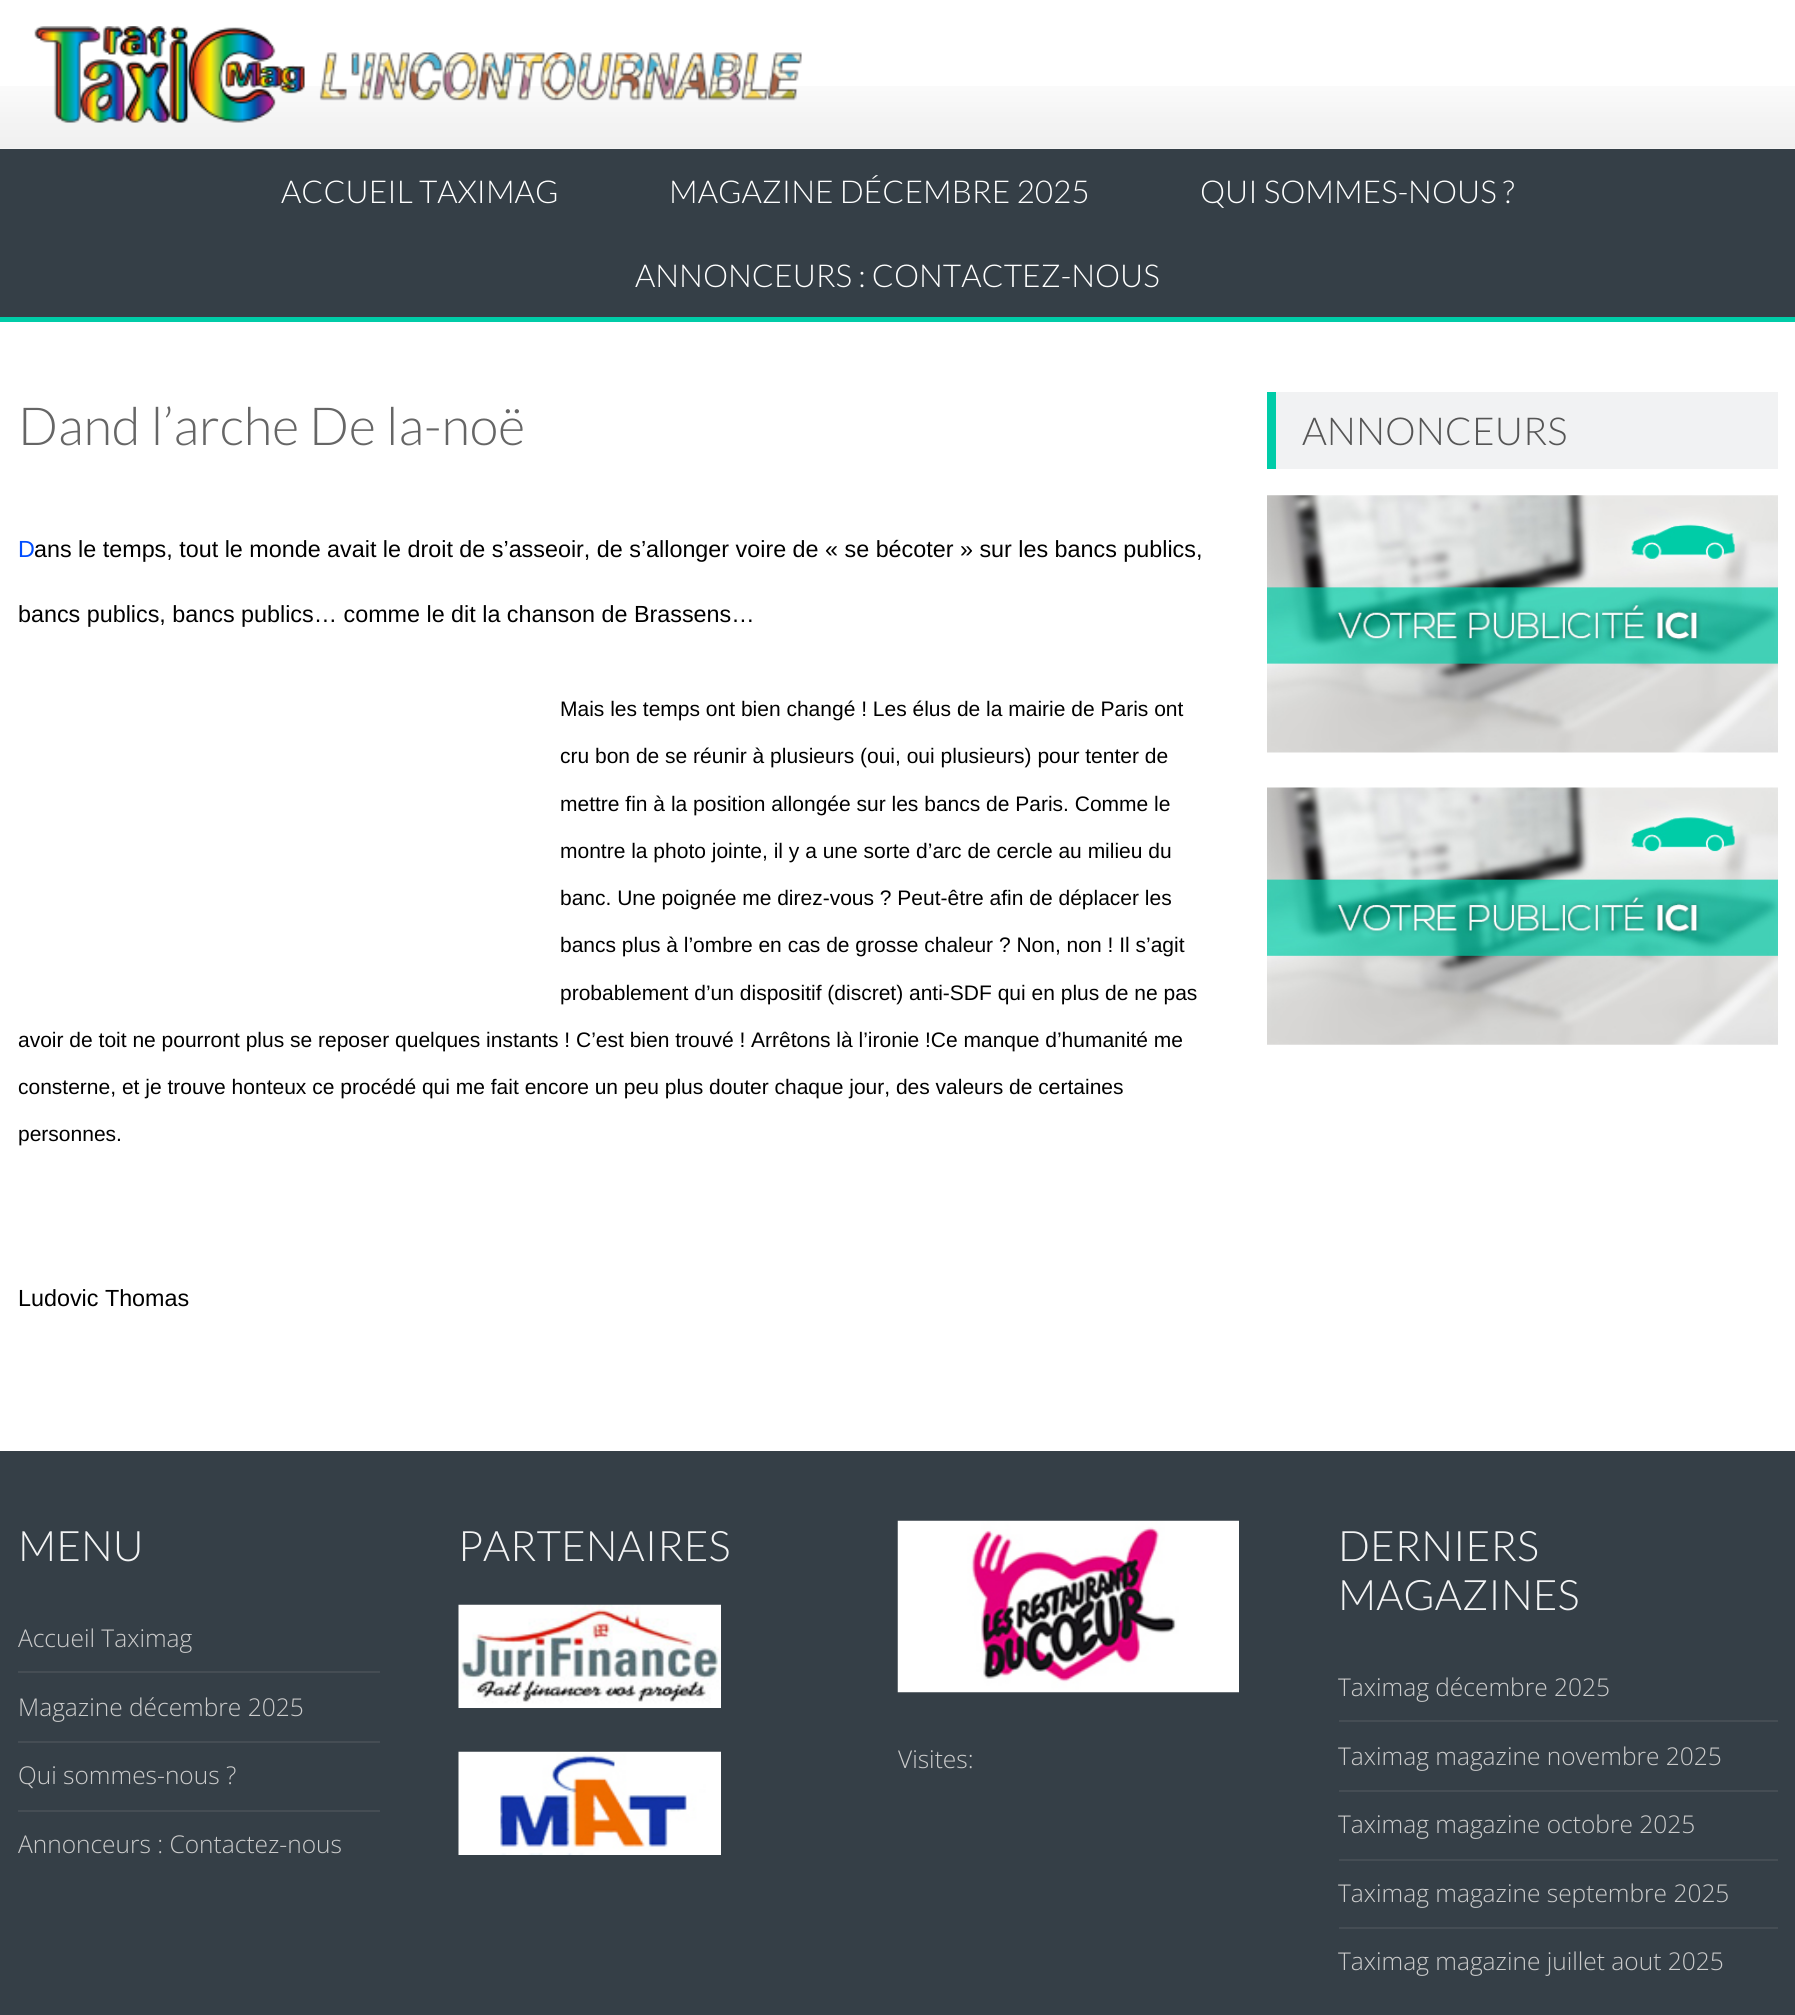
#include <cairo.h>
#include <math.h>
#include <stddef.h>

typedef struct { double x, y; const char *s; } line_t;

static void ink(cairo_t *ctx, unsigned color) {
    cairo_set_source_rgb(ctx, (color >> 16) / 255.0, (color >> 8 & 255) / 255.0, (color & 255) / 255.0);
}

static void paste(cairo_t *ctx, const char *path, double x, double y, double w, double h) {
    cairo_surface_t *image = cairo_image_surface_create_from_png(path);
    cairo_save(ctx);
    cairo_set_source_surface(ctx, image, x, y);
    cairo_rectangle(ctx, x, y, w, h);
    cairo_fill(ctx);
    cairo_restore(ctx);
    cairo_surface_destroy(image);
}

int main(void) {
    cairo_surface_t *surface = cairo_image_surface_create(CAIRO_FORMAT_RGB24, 1795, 2015);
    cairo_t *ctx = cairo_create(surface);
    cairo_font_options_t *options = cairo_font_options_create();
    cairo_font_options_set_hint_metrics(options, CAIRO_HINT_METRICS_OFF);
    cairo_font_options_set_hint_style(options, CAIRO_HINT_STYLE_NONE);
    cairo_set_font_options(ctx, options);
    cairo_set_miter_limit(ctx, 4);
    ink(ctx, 0xFFFFFF);
    cairo_paint(ctx);
    paste(ctx, "media/1.png", 0, 86, 1795, 63);
    paste(ctx, "media/2.png", 34, 26, 768, 97);
    ink(ctx, 0x353F47);
    cairo_rectangle(ctx, 0, 149, 1795, 168);
    cairo_fill(ctx);
    ink(ctx, 0x00CCA8);
    cairo_rectangle(ctx, 0, 317, 1795, 5);
    cairo_fill(ctx);
    cairo_select_font_face(ctx, "Lato Light", CAIRO_FONT_SLANT_NORMAL, CAIRO_FONT_WEIGHT_NORMAL);
    cairo_set_font_size(ctx, 31.5);
    ink(ctx, 0xFFFFFF);
    {
        static const line_t items[] = {
            {281, 203, "ACCUEIL TAXIMAG"},
            {669, 203, "MAGAZINE DÉCEMBRE 2025"},
            {1200, 203, "QUI SOMMES-NOUS ?"},
            {635, 287, "ANNONCEURS : CONTACTEZ-NOUS"},
        };
        for (size_t i = 0; i < sizeof items / sizeof *items; i++) {
            cairo_move_to(ctx, items[i].x, items[i].y);
            cairo_show_text(ctx, items[i].s);
        }
    }
    cairo_set_font_size(ctx, 52.5);
    ink(ctx, 0x666666);
    cairo_move_to(ctx, 18, 445);
    cairo_show_text(ctx, "Dand l’arche De la-noë");
    cairo_select_font_face(ctx, "Liberation Sans", CAIRO_FONT_SLANT_NORMAL, CAIRO_FONT_WEIGHT_NORMAL);
    cairo_set_font_size(ctx, 23.33);
    ink(ctx, 0x004DFF);
    cairo_move_to(ctx, 18, 557);
    cairo_show_text(ctx, "D");
    ink(ctx, 0x000000);
    cairo_move_to(ctx, 34, 557);
    cairo_show_text(ctx, "ans le temps, tout le monde avait le droit de s’asseoir, de s’allonger voire de « se bécoter » sur les bancs publics,");
    cairo_move_to(ctx, 18, 622);
    cairo_show_text(ctx, "bancs publics, bancs publics… comme le dit la chanson de Brassens…");
    cairo_set_font_size(ctx, 21);
    {
        static const line_t items[] = {
            {560, 716, "Mais les temps ont bien changé ! Les élus de la mairie de Paris ont"},
            {560, 763, "cru bon de se réunir à plusieurs (oui, oui plusieurs) pour tenter de"},
            {560, 811, "mettre fin à la position allongée sur les bancs de Paris. Comme le"},
            {560, 858, "montre la photo jointe, il y a une sorte d’arc de cercle au milieu du"},
            {560, 905, "banc. Une poignée me direz-vous ? Peut-être afin de déplacer les"},
            {560, 952, "bancs plus à l’ombre en cas de grosse chaleur ? Non, non ! Il s’agit"},
            {560, 1000, "probablement d’un dispositif (discret) anti-SDF qui en plus de ne pas"},
            {18, 1047, "avoir de toit ne pourront plus se reposer quelques instants ! C’est bien trouvé ! Arrêtons là l’ironie !Ce manque d’humanité me"},
            {18, 1094, "consterne, et je trouve honteux ce procédé qui me fait encore un peu plus douter chaque jour, des valeurs de certaines"},
            {18, 1141, "personnes."},
        };
        for (size_t i = 0; i < sizeof items / sizeof *items; i++) {
            cairo_move_to(ctx, items[i].x, items[i].y);
            cairo_show_text(ctx, items[i].s);
        }
    }
    cairo_set_font_size(ctx, 23.33);
    cairo_move_to(ctx, 18, 1306);
    cairo_show_text(ctx, "Ludovic Thomas");
    ink(ctx, 0xF1F2F3);
    cairo_rectangle(ctx, 1276, 392, 502, 77);
    cairo_fill(ctx);
    ink(ctx, 0x00CCA8);
    cairo_rectangle(ctx, 1267, 392, 9, 77);
    cairo_fill(ctx);
    cairo_select_font_face(ctx, "Lato Light", CAIRO_FONT_SLANT_NORMAL, CAIRO_FONT_WEIGHT_NORMAL);
    cairo_set_font_size(ctx, 38.5);
    ink(ctx, 0x555555);
    cairo_move_to(ctx, 1302, 445);
    cairo_show_text(ctx, "ANNONCEURS");
    paste(ctx, "media/3.png", 1267, 495, 511, 258);
    paste(ctx, "media/4.png", 1267, 787, 511, 258);
    ink(ctx, 0x353F47);
    cairo_rectangle(ctx, 0, 1451, 1795, 564);
    cairo_fill(ctx);
    cairo_set_font_size(ctx, 42);
    ink(ctx, 0xF2F3F4);
    cairo_move_to(ctx, 18, 1561);
    cairo_show_text(ctx, "MENU");
    ink(ctx, 0x454D54);
    cairo_rectangle(ctx, 18, 1671, 362, 2);
    cairo_fill(ctx);
    cairo_select_font_face(ctx, "Open Sans Light", CAIRO_FONT_SLANT_NORMAL, CAIRO_FONT_WEIGHT_NORMAL);
    cairo_set_font_size(ctx, 24.5);
    ink(ctx, 0xCCCCCC);
    cairo_move_to(ctx, 18, 1647);
    cairo_show_text(ctx, "Accueil Taximag");
    ink(ctx, 0x454D54);
    cairo_rectangle(ctx, 18, 1741, 362, 2);
    cairo_fill(ctx);
    ink(ctx, 0xCCCCCC);
    cairo_move_to(ctx, 18, 1716);
    cairo_show_text(ctx, "Magazine décembre 2025");
    ink(ctx, 0x454D54);
    cairo_rectangle(ctx, 18, 1810, 362, 2);
    cairo_fill(ctx);
    ink(ctx, 0xCCCCCC);
    cairo_move_to(ctx, 18, 1784);
    cairo_show_text(ctx, "Qui sommes-nous ?");
    cairo_move_to(ctx, 18, 1853);
    cairo_show_text(ctx, "Annonceurs : Contactez-nous");
    cairo_select_font_face(ctx, "Lato Light", CAIRO_FONT_SLANT_NORMAL, CAIRO_FONT_WEIGHT_NORMAL);
    cairo_set_font_size(ctx, 42);
    ink(ctx, 0xF2F3F4);
    cairo_move_to(ctx, 458, 1561);
    cairo_show_text(ctx, "PARTENAIRES");
    paste(ctx, "media/5.png", 458, 1604, 263, 104);
    paste(ctx, "media/6.png", 458, 1751, 263, 104);
    paste(ctx, "media/7.png", 897, 1520, 342, 173);
    cairo_select_font_face(ctx, "Open Sans Light", CAIRO_FONT_SLANT_NORMAL, CAIRO_FONT_WEIGHT_NORMAL);
    cairo_set_font_size(ctx, 24.5);
    ink(ctx, 0xCCCCCC);
    cairo_move_to(ctx, 898, 1768);
    cairo_show_text(ctx, "Visites:");
    cairo_select_font_face(ctx, "Lato Light", CAIRO_FONT_SLANT_NORMAL, CAIRO_FONT_WEIGHT_NORMAL);
    cairo_set_font_size(ctx, 42);
    ink(ctx, 0xF2F3F4);
    cairo_move_to(ctx, 1338, 1561);
    cairo_show_text(ctx, "DERNIERS");
    cairo_move_to(ctx, 1338, 1610);
    cairo_show_text(ctx, "MAGAZINES");
    ink(ctx, 0x454D54);
    cairo_rectangle(ctx, 1339, 1720, 439, 2);
    cairo_fill(ctx);
    cairo_select_font_face(ctx, "Open Sans Light", CAIRO_FONT_SLANT_NORMAL, CAIRO_FONT_WEIGHT_NORMAL);
    cairo_set_font_size(ctx, 24.5);
    ink(ctx, 0xCCCCCC);
    cairo_move_to(ctx, 1338, 1696);
    cairo_show_text(ctx, "Taximag décembre 2025");
    ink(ctx, 0x454D54);
    cairo_rectangle(ctx, 1339, 1790, 439, 2);
    cairo_fill(ctx);
    ink(ctx, 0xCCCCCC);
    cairo_move_to(ctx, 1338, 1765);
    cairo_show_text(ctx, "Taximag magazine novembre 2025");
    ink(ctx, 0x454D54);
    cairo_rectangle(ctx, 1339, 1859, 439, 2);
    cairo_fill(ctx);
    ink(ctx, 0xCCCCCC);
    cairo_move_to(ctx, 1338, 1833);
    cairo_show_text(ctx, "Taximag magazine octobre 2025");
    ink(ctx, 0x454D54);
    cairo_rectangle(ctx, 1339, 1927, 439, 2);
    cairo_fill(ctx);
    ink(ctx, 0xCCCCCC);
    cairo_move_to(ctx, 1338, 1902);
    cairo_show_text(ctx, "Taximag magazine septembre 2025");
    cairo_move_to(ctx, 1338, 1970);
    cairo_show_text(ctx, "Taximag magazine juillet aout 2025");
    cairo_surface_write_to_png(surface, "image.png");
    cairo_font_options_destroy(options);
    cairo_destroy(ctx);
    cairo_surface_destroy(surface);
    return 0;
}
